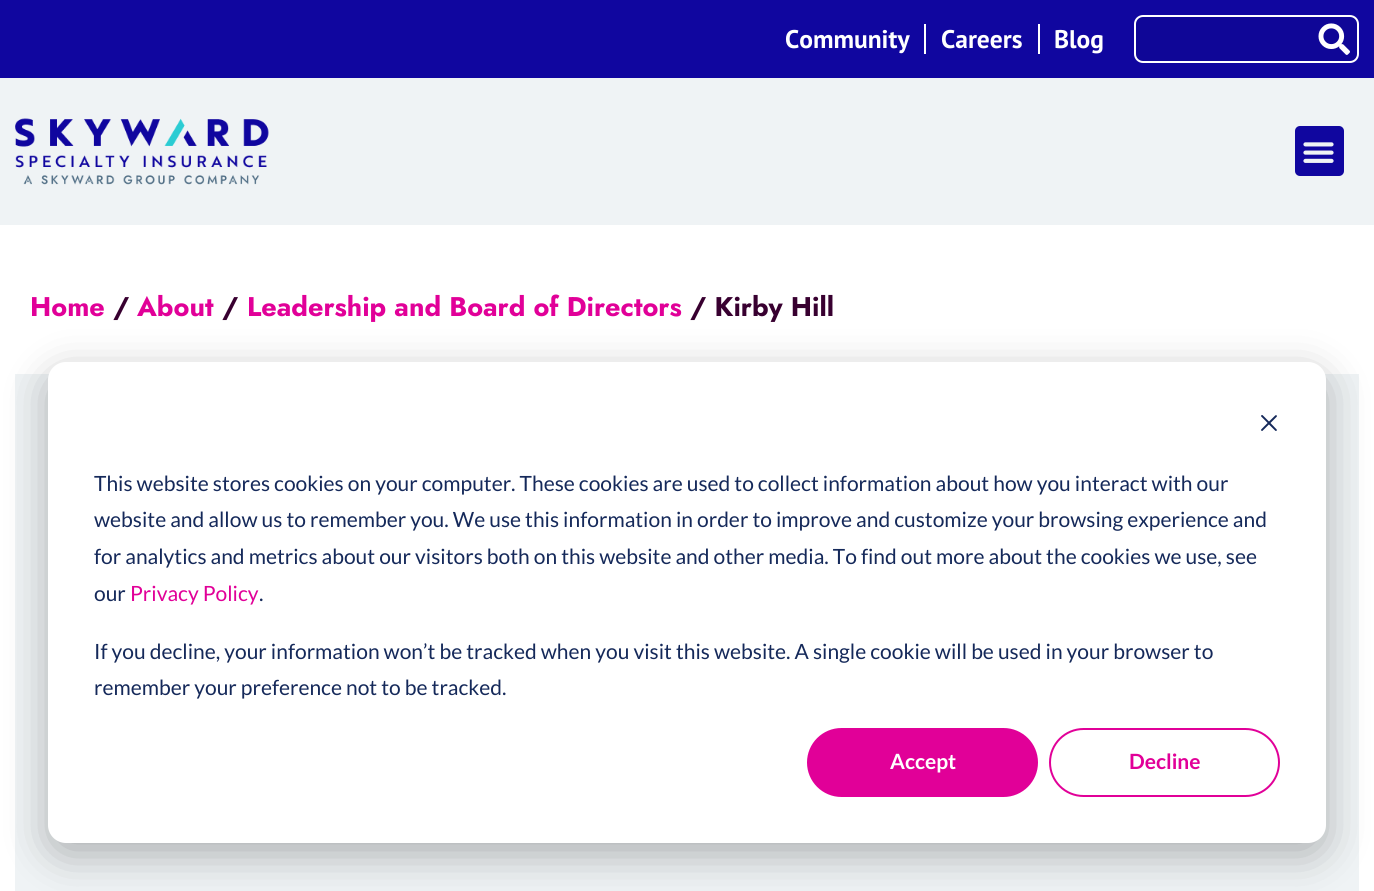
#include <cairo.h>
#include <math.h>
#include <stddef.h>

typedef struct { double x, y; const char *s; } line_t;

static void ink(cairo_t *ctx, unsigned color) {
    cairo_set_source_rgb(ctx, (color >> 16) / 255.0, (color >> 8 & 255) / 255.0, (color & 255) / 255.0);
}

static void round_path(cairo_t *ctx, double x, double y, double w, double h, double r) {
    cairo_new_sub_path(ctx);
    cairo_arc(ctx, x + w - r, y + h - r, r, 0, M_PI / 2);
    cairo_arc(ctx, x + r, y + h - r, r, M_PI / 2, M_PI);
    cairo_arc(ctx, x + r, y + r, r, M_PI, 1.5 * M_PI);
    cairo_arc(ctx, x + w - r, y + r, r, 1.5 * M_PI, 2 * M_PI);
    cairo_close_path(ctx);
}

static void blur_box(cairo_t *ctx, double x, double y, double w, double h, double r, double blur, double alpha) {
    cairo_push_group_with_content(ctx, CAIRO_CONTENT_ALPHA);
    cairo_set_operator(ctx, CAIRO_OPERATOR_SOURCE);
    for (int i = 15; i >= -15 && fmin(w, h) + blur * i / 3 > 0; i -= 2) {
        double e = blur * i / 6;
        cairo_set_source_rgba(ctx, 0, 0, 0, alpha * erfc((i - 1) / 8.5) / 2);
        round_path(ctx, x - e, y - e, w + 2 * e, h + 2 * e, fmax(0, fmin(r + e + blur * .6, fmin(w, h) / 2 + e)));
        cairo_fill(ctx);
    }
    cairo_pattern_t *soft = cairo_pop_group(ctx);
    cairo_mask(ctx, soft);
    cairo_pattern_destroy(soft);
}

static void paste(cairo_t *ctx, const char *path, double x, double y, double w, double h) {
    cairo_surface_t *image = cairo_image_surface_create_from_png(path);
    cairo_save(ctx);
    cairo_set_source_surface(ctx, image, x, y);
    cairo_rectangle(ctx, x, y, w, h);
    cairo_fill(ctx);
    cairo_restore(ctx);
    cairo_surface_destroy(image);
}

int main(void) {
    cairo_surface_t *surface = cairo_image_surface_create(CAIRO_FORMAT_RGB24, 1374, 891);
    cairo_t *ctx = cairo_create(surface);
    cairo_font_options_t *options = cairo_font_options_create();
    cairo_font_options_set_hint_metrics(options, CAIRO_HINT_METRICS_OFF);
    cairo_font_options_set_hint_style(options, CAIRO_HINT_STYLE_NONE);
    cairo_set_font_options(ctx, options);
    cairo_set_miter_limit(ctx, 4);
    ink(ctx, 0xFFFFFF);
    cairo_paint(ctx);
    ink(ctx, 0x10069F);
    cairo_rectangle(ctx, 0, 0, 1374, 78);
    cairo_fill(ctx);
    cairo_select_font_face(ctx, "PT Sans", CAIRO_FONT_SLANT_NORMAL, CAIRO_FONT_WEIGHT_BOLD);
    cairo_set_font_size(ctx, 25.5);
    ink(ctx, 0xFFFFFF);
    cairo_move_to(ctx, 785, 48);
    cairo_show_text(ctx, "Community");
    cairo_rectangle(ctx, 924, 24, 2, 30);
    cairo_fill(ctx);
    cairo_move_to(ctx, 941, 48);
    cairo_show_text(ctx, "Careers");
    cairo_rectangle(ctx, 1038, 24, 2, 30);
    cairo_fill(ctx);
    cairo_move_to(ctx, 1054, 48);
    cairo_show_text(ctx, "Blog");
    ink(ctx, 0x0F0697);
    round_path(ctx, 1135, 16, 223, 46, 8);
    cairo_fill_preserve(ctx);
    ink(ctx, 0xFFFFFF);
    cairo_stroke(ctx);
    paste(ctx, "media/1.png", 1318, 23, 32, 32);
    ink(ctx, 0xEFF3F5);
    cairo_rectangle(ctx, 0, 78, 1374, 147);
    cairo_fill(ctx);
    paste(ctx, "media/2.png", 15, 118, 254, 67);
    ink(ctx, 0x10069F);
    round_path(ctx, 1295, 126, 49, 50, 5);
    cairo_fill(ctx);
    paste(ctx, "media/3.png", 1303, 142, 31, 21);
    cairo_select_font_face(ctx, "Jost", CAIRO_FONT_SLANT_NORMAL, CAIRO_FONT_WEIGHT_BOLD);
    cairo_set_font_size(ctx, 27);
    ink(ctx, 0xE10098);
    cairo_move_to(ctx, 30, 316);
    cairo_show_text(ctx, "Home");
    ink(ctx, 0x380030);
    cairo_move_to(ctx, 113, 316);
    cairo_show_text(ctx, "/");
    ink(ctx, 0xE10098);
    cairo_move_to(ctx, 137, 316);
    cairo_show_text(ctx, "About");
    ink(ctx, 0x380030);
    cairo_move_to(ctx, 222, 316);
    cairo_show_text(ctx, "/");
    ink(ctx, 0xE10098);
    cairo_move_to(ctx, 247, 316);
    cairo_show_text(ctx, "Leadership and Board of Directors");
    ink(ctx, 0x380030);
    cairo_move_to(ctx, 690, 316);
    cairo_show_text(ctx, "/ Kirby Hill");
    ink(ctx, 0xEFF3F5);
    cairo_rectangle(ctx, 15, 374, 1344, 517);
    cairo_fill(ctx);
    ink(ctx, 0x000000);
    blur_box(ctx, 48, 374, 1278, 481, 18, 21, 0.28);
    ink(ctx, 0xFFFFFF);
    round_path(ctx, 48, 362, 1278, 481, 18);
    cairo_fill(ctx);
    paste(ctx, "media/4.png", 1261, 415, 16, 16);
    cairo_select_font_face(ctx, "Lato", CAIRO_FONT_SLANT_NORMAL, CAIRO_FONT_WEIGHT_NORMAL);
    cairo_set_font_size(ctx, 21);
    ink(ctx, 0x15295A);
    {
        static const line_t items[] = {
            {94, 491, "This website stores cookies on your computer. These cookies are used to collect information about how you interact with our"},
            {94, 527, "website and allow us to remember you. We use this information in order to improve and customize your browsing experience and"},
            {94, 564, "for analytics and metrics about our visitors both on this website and other media. To find out more about the cookies we use, see"},
            {94, 601, "our"},
        };
        for (size_t i = 0; i < sizeof items / sizeof *items; i++) {
            cairo_move_to(ctx, items[i].x, items[i].y);
            cairo_show_text(ctx, items[i].s);
        }
    }
    ink(ctx, 0xE10098);
    cairo_move_to(ctx, 130, 601);
    cairo_show_text(ctx, "Privacy Policy");
    ink(ctx, 0x15295A);
    {
        static const line_t items[] = {
            {259, 601, "."},
            {94, 659, "If you decline, your information won’t be tracked when you visit this website. A single cookie will be used in your browser to"},
            {94, 695, "remember your preference not to be tracked."},
        };
        for (size_t i = 0; i < sizeof items / sizeof *items; i++) {
            cairo_move_to(ctx, items[i].x, items[i].y);
            cairo_show_text(ctx, items[i].s);
        }
    }
    ink(ctx, 0xE10098);
    round_path(ctx, 808, 729, 229, 67, 33.5);
    cairo_fill_preserve(ctx);
    cairo_stroke(ctx);
    cairo_select_font_face(ctx, "Lato", CAIRO_FONT_SLANT_NORMAL, CAIRO_FONT_WEIGHT_BOLD);
    ink(ctx, 0xFFFFFF);
    cairo_move_to(ctx, 890, 769);
    cairo_show_text(ctx, "Accept");
    round_path(ctx, 1050, 729, 229, 67, 33.5);
    ink(ctx, 0xE10098);
    cairo_stroke(ctx);
    cairo_move_to(ctx, 1129, 769);
    cairo_show_text(ctx, "Decline");
    cairo_surface_write_to_png(surface, "image.png");
    cairo_font_options_destroy(options);
    cairo_destroy(ctx);
    cairo_surface_destroy(surface);
    return 0;
}
